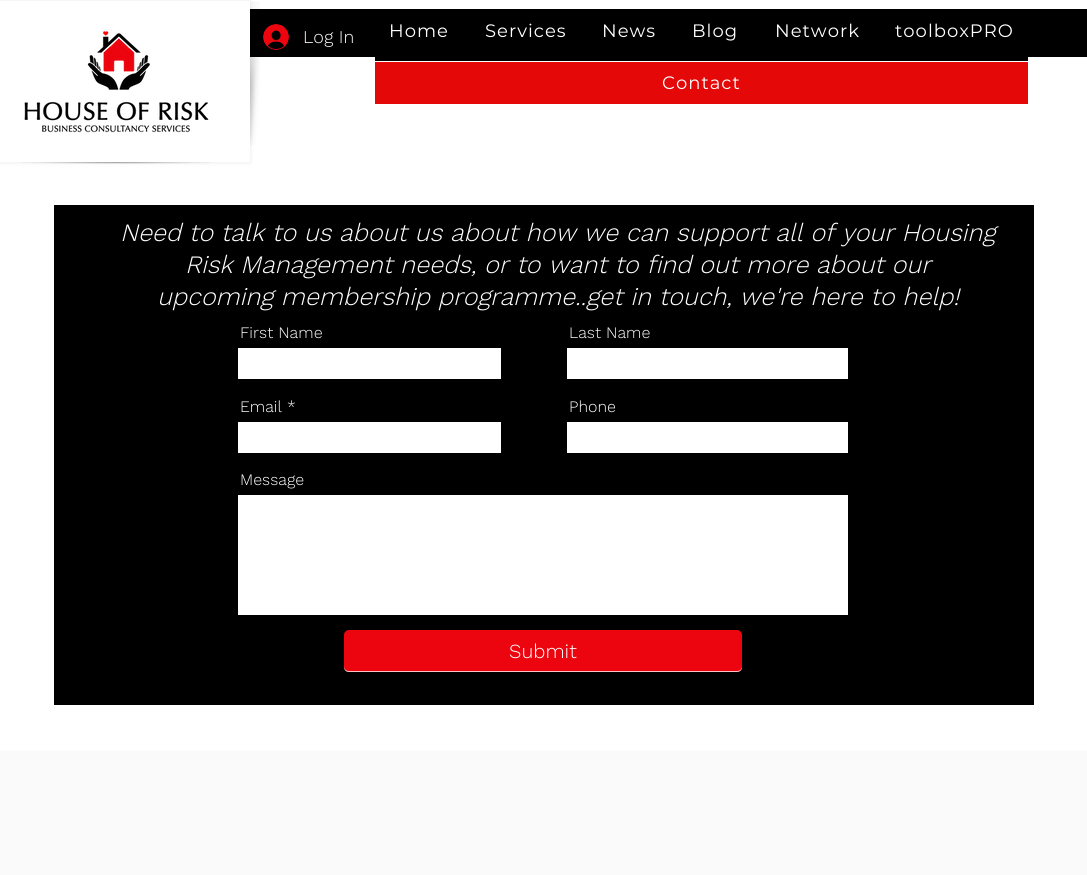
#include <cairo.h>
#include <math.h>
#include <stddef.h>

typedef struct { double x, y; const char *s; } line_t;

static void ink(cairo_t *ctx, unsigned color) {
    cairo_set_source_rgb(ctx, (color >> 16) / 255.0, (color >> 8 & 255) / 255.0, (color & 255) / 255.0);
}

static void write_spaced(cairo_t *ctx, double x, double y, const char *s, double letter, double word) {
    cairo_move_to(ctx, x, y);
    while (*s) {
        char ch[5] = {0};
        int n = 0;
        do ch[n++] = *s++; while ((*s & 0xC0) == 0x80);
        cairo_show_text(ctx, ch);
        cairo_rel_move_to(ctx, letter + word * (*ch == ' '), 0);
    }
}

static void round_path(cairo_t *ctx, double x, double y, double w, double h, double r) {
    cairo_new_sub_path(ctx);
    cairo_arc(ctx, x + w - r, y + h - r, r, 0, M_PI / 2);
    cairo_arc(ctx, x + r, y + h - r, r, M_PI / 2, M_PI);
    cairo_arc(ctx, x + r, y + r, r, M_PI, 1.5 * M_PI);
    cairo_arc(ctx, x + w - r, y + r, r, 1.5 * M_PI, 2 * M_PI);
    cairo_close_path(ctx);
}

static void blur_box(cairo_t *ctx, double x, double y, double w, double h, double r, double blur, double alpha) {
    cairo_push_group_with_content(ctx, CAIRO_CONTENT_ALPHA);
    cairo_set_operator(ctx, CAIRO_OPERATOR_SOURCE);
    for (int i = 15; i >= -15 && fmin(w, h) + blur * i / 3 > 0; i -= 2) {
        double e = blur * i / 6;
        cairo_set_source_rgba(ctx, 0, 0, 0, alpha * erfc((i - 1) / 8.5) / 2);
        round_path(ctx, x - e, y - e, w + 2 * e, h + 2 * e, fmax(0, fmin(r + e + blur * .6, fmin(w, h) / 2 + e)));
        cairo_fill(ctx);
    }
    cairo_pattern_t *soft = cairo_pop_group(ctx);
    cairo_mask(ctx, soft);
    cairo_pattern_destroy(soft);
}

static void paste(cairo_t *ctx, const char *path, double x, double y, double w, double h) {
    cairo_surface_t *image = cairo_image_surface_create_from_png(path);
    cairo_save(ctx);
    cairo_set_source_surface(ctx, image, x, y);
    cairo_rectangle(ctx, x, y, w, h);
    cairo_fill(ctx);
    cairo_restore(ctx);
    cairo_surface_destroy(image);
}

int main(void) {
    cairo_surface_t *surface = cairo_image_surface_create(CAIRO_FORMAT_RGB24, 1087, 875);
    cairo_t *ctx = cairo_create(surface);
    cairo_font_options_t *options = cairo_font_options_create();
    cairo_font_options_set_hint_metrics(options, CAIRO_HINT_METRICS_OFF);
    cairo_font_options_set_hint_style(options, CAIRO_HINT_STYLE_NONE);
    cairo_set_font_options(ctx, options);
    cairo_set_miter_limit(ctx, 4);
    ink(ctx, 0xFFFFFF);
    cairo_paint(ctx);
    ink(ctx, 0x000000);
    cairo_rectangle(ctx, 250, 9, 837, 48);
    cairo_fill(ctx);
    ink(ctx, 0x000000);
    blur_box(ctx, -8, 1, 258, 161, 0, 2.5, 0.1);
    ink(ctx, 0xFFFFFF);
    cairo_rectangle(ctx, 0, 1, 250, 161);
    cairo_fill(ctx);
    paste(ctx, "media/1.png", 24, 31, 185, 102);
    paste(ctx, "media/2.png", 22, 162, 188, 2);
    paste(ctx, "media/3.png", 250, 1, 10, 145);
    paste(ctx, "media/4.png", 263, 24, 26, 26);
    cairo_select_font_face(ctx, "Work Sans Light", CAIRO_FONT_SLANT_NORMAL, CAIRO_FONT_WEIGHT_NORMAL);
    cairo_set_font_size(ctx, 18);
    cairo_move_to(ctx, 303, 43);
    cairo_show_text(ctx, "Log In");
    ink(ctx, 0x000000);
    cairo_rectangle(ctx, 375, 57, 653, 4);
    cairo_fill(ctx);
    cairo_select_font_face(ctx, "Montserrat", CAIRO_FONT_SLANT_NORMAL, CAIRO_FONT_WEIGHT_NORMAL);
    ink(ctx, 0xFFFFFF);
    {
        static const line_t items[] = {
            {389, 37, "Home"},
            {485, 37, "Services"},
            {602, 37, "News"},
            {692, 37, "Blog"},
            {775, 37, "Network"},
            {895, 37, "toolboxPRO"},
        };
        for (size_t i = 0; i < sizeof items / sizeof *items; i++) {
            write_spaced(ctx, items[i].x, items[i].y, items[i].s, 1, 0);
        }
    }
    ink(ctx, 0xE50808);
    cairo_rectangle(ctx, 375, 62, 653, 42);
    cairo_fill(ctx);
    ink(ctx, 0xFFFFFF);
    write_spaced(ctx, 662, 89, "Contact", 1, 0);
    ink(ctx, 0x000000);
    cairo_rectangle(ctx, 54, 205, 980, 500);
    cairo_fill(ctx);
    cairo_select_font_face(ctx, "Work Sans Light", CAIRO_FONT_SLANT_ITALIC, CAIRO_FONT_WEIGHT_NORMAL);
    cairo_set_font_size(ctx, 25);
    ink(ctx, 0xFFFFFF);
    {
        static const line_t items[] = {
            {120, 241, "Need to talk to us about us about how we can support all of your Housing"},
            {185, 273, "Risk Management needs, or to want to find out more about our"},
            {157, 305, "upcoming membership programme..get in touch, we're here to help!"},
        };
        for (size_t i = 0; i < sizeof items / sizeof *items; i++) {
            cairo_move_to(ctx, items[i].x, items[i].y);
            cairo_show_text(ctx, items[i].s);
        }
    }
    cairo_select_font_face(ctx, "Work Sans Light", CAIRO_FONT_SLANT_NORMAL, CAIRO_FONT_WEIGHT_NORMAL);
    cairo_set_font_size(ctx, 16);
    cairo_move_to(ctx, 240, 338);
    cairo_show_text(ctx, "First Name");
    cairo_rectangle(ctx, 238, 348, 263, 31);
    cairo_fill(ctx);
    cairo_move_to(ctx, 569, 338);
    cairo_show_text(ctx, "Last Name");
    cairo_rectangle(ctx, 567, 348, 281, 31);
    cairo_fill(ctx);
    cairo_move_to(ctx, 240, 412);
    cairo_show_text(ctx, "Email *");
    cairo_rectangle(ctx, 238, 422, 263, 31);
    cairo_fill(ctx);
    cairo_move_to(ctx, 569, 412);
    cairo_show_text(ctx, "Phone");
    cairo_rectangle(ctx, 567, 422, 281, 31);
    cairo_fill(ctx);
    cairo_move_to(ctx, 240, 485);
    cairo_show_text(ctx, "Message");
    cairo_rectangle(ctx, 238, 495, 610, 120);
    cairo_fill(ctx);
    ink(ctx, 0xEC040F);
    round_path(ctx, 344, 630, 398, 42, 5);
    cairo_fill(ctx);
    cairo_set_source_rgba(ctx, 1, 1, 1, 0.75);
    cairo_new_path(ctx);
    cairo_move_to(ctx, 344, 666);
    cairo_line_to(ctx, 344, 667);
    cairo_curve_to(ctx, 344, 670, 346, 672, 349, 672);
    cairo_line_to(ctx, 737, 672);
    cairo_curve_to(ctx, 740, 672, 742, 670, 742, 667);
    cairo_line_to(ctx, 742, 666);
    cairo_curve_to(ctx, 742, 669, 740, 671, 737, 671);
    cairo_line_to(ctx, 349, 671);
    cairo_curve_to(ctx, 346, 671, 344, 669, 344, 666);
    cairo_close_path(ctx);
    cairo_fill(ctx);
    cairo_set_font_size(ctx, 20);
    ink(ctx, 0xFFFFFF);
    cairo_move_to(ctx, 509, 658);
    cairo_show_text(ctx, "Submit");
    ink(ctx, 0xFAFAFA);
    cairo_rectangle(ctx, 0, 751, 1087, 124);
    cairo_fill(ctx);
    cairo_surface_write_to_png(surface, "image.png");
    cairo_font_options_destroy(options);
    cairo_destroy(ctx);
    cairo_surface_destroy(surface);
    return 0;
}
